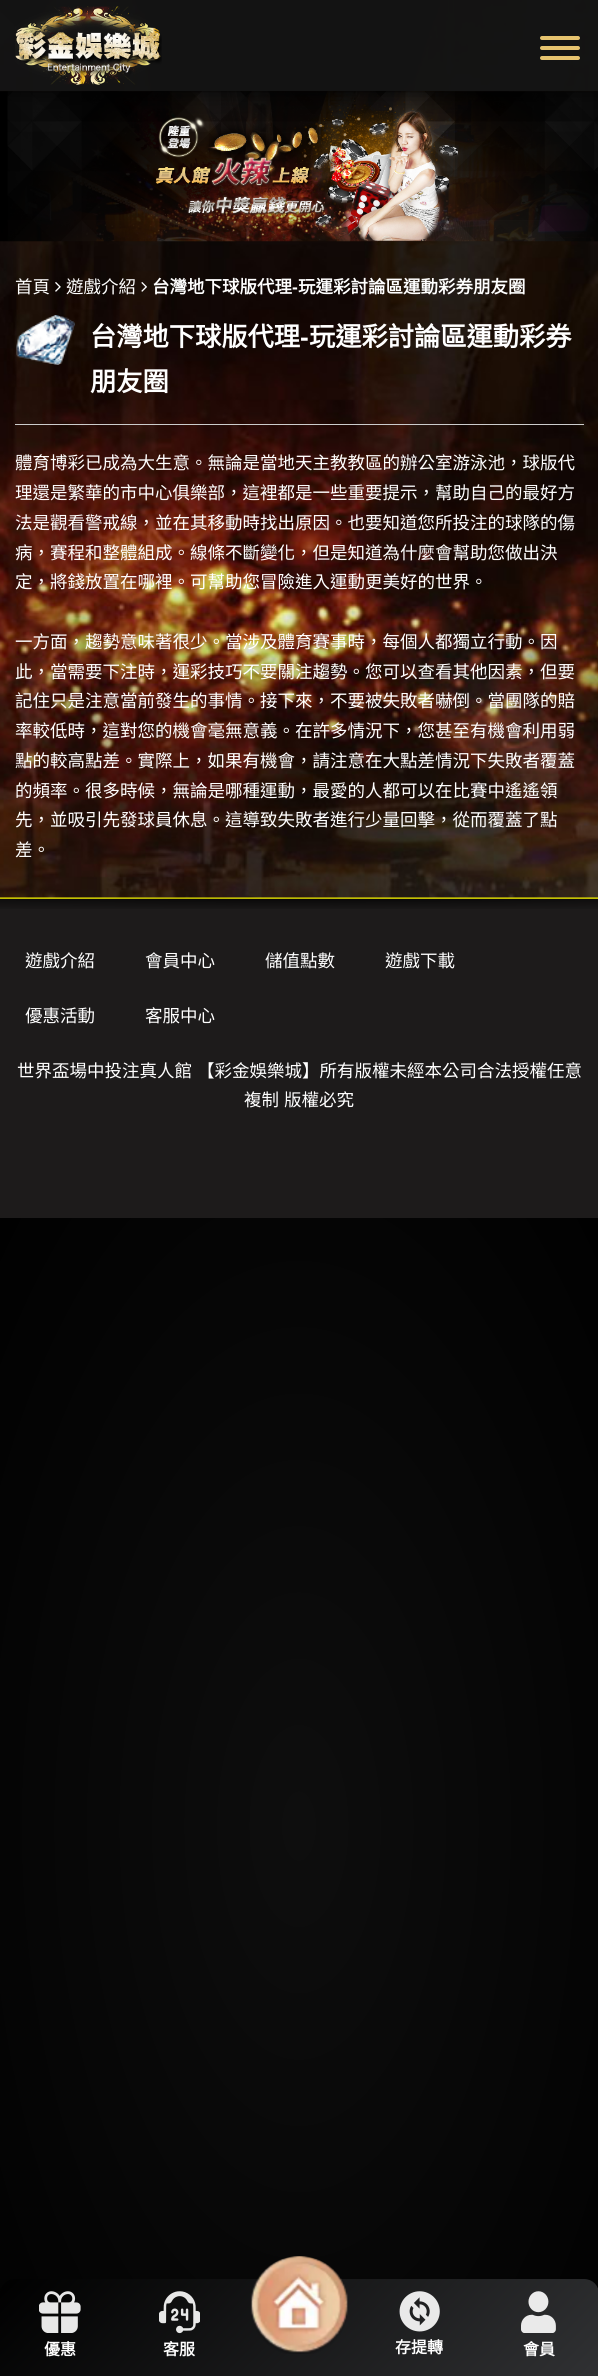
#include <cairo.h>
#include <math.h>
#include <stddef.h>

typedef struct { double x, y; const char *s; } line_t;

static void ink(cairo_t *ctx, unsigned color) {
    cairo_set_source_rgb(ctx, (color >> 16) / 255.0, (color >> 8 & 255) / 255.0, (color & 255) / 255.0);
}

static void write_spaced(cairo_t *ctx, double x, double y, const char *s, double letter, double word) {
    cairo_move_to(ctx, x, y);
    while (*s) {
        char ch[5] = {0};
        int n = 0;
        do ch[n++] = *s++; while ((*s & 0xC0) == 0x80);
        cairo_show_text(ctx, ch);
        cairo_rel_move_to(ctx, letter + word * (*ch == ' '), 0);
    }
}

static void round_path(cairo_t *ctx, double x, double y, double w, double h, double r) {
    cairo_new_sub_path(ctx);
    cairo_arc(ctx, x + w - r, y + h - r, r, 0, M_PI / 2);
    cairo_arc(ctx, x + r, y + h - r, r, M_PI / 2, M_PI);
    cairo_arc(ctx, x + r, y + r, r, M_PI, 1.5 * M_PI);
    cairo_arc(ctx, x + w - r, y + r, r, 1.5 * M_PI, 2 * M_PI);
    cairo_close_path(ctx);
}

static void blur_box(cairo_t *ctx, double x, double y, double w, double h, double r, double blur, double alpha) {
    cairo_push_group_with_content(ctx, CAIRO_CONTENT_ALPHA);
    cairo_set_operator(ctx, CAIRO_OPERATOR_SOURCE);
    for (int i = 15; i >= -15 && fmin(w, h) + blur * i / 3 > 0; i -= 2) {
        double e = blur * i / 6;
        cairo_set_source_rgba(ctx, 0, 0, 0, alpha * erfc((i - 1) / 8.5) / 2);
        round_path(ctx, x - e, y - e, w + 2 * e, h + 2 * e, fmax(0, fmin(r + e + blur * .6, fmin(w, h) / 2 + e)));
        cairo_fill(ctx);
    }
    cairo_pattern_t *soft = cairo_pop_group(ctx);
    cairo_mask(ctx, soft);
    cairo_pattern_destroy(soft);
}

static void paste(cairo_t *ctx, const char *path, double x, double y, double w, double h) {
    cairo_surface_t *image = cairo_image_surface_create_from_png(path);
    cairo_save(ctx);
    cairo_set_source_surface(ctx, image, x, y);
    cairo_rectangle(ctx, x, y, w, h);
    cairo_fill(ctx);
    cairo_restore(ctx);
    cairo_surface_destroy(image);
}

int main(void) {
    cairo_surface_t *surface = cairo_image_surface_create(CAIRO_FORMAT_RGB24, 598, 2376);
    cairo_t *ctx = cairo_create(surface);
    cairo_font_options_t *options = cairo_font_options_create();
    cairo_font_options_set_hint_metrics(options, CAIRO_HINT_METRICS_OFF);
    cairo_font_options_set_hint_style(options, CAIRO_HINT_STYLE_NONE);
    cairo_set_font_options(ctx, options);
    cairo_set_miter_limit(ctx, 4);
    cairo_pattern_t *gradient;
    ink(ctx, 0xFFFFFF);
    cairo_paint(ctx);
    gradient = cairo_pattern_create_radial(0, 0, 0, 0, 0, 1);
    cairo_pattern_set_matrix(gradient, &(cairo_matrix_t){1.0 / 423, 0, 0, 1.0 / 861, -1.0 * 299 / 423, -1.0 * 1826 / 861});
    cairo_pattern_add_color_stop_rgba(gradient, 0, 0.055, 0.055, 0.055, 1);
    cairo_pattern_add_color_stop_rgba(gradient, 1, 0.004, 0.004, 0.004, 1);
    cairo_set_source(ctx, gradient);
    cairo_pattern_destroy(gradient);
    cairo_rectangle(ctx, 0, 1218, 598, 1076);
    cairo_fill(ctx);
    paste(ctx, "media/1.png", 0, 0, 598, 898);
    paste(ctx, "media/3.png", 0, 91, 598, 151);
    cairo_save(ctx);
    cairo_rectangle(ctx, 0, 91, 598, 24);
    cairo_clip(ctx);
    ink(ctx, 0x000000);
    blur_box(ctx, 0, 0, 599, 91, 0, 12.5, 0.7);
    cairo_restore(ctx);
    cairo_set_source_rgba(ctx, 0.078, 0.078, 0.078, 0.96);
    cairo_rectangle(ctx, 0, 0, 598, 91);
    cairo_fill(ctx);
    paste(ctx, "media/2.png", 15, 6, 147, 79);
    ink(ctx, 0xE6C36F);
    round_path(ctx, 540, 36, 40, 4, 2);
    cairo_fill(ctx);
    round_path(ctx, 540, 46, 40, 4, 2);
    cairo_fill(ctx);
    round_path(ctx, 540, 56, 40, 4, 2);
    cairo_fill(ctx);
    cairo_select_font_face(ctx, "Noto Sans CJK TC", CAIRO_FONT_SLANT_NORMAL, CAIRO_FONT_WEIGHT_NORMAL);
    cairo_set_font_size(ctx, 17.5);
    ink(ctx, 0xFFFFFF);
    cairo_move_to(ctx, 15, 293);
    cairo_show_text(ctx, "首頁");
    paste(ctx, "media/4.png", 55, 282, 6, 10);
    cairo_move_to(ctx, 66, 293);
    cairo_show_text(ctx, "遊戲介紹");
    paste(ctx, "media/5.png", 141, 282, 6, 10);
    cairo_select_font_face(ctx, "Noto Sans CJK TC", CAIRO_FONT_SLANT_NORMAL, CAIRO_FONT_WEIGHT_BOLD);
    cairo_move_to(ctx, 152, 293);
    cairo_show_text(ctx, "台灣地下球版代理");
    cairo_select_font_face(ctx, "Liberation Sans", CAIRO_FONT_SLANT_NORMAL, CAIRO_FONT_WEIGHT_BOLD);
    cairo_move_to(ctx, 292, 293);
    cairo_show_text(ctx, "-");
    cairo_select_font_face(ctx, "Noto Sans CJK TC", CAIRO_FONT_SLANT_NORMAL, CAIRO_FONT_WEIGHT_BOLD);
    cairo_move_to(ctx, 298, 293);
    cairo_show_text(ctx, "玩運彩討論區運動彩券朋友圈");
    paste(ctx, "media/6.png", 16, 315, 59, 50);
    ink(ctx, 0xCCCCCC);
    cairo_rectangle(ctx, 15, 424, 569, 1);
    cairo_fill(ctx);
    cairo_set_font_size(ctx, 26.25);
    ink(ctx, 0xFFFFFF);
    cairo_move_to(ctx, 90, 346);
    cairo_show_text(ctx, "台灣地下球版代理");
    cairo_select_font_face(ctx, "Liberation Sans", CAIRO_FONT_SLANT_NORMAL, CAIRO_FONT_WEIGHT_BOLD);
    cairo_move_to(ctx, 300, 346);
    cairo_show_text(ctx, "-");
    cairo_select_font_face(ctx, "Noto Sans CJK TC", CAIRO_FONT_SLANT_NORMAL, CAIRO_FONT_WEIGHT_BOLD);
    cairo_move_to(ctx, 309, 346);
    cairo_show_text(ctx, "玩運彩討論區運動彩券");
    cairo_move_to(ctx, 90, 391);
    cairo_show_text(ctx, "朋友圈");
    cairo_select_font_face(ctx, "Noto Sans CJK TC", CAIRO_FONT_SLANT_NORMAL, CAIRO_FONT_WEIGHT_NORMAL);
    cairo_set_font_size(ctx, 17.5);
    {
        static const line_t items[] = {
            {15, 469, "體育博彩已成為大生意。無論是當地天主教教區的辦公室游泳池，球版代"},
            {15, 499, "理還是繁華的市中心俱樂部，這裡都是一些重要提示，幫助自己的最好方"},
            {15, 529, "法是觀看警戒線，並在其移動時找出原因。也要知道您所投注的球隊的傷"},
            {15, 559, "病，賽程和整體組成。線條不斷變化，但是知道為什麼會幫助您做出決"},
            {15, 588, "定，將錢放置在哪裡。可幫助您冒險進入運動更美好的世界。"},
            {15, 648, "一方面，趨勢意味著很少。當涉及體育賽事時，每個人都獨立行動。因"},
            {15, 678, "此，當需要下注時，運彩技巧不要關注趨勢。您可以查看其他因素，但要"},
            {15, 707, "記住只是注意當前發生的事情。接下來，不要被失敗者嚇倒。當團隊的賠"},
            {15, 737, "率較低時，這對您的機會毫無意義。在許多情況下，您甚至有機會利用弱"},
            {15, 767, "點的較高點差。實際上，如果有機會，請注意在大點差情況下失敗者覆蓋"},
            {15, 797, "的頻率。很多時候，無論是哪種運動，最愛的人都可以在比賽中遙遙領"},
            {15, 826, "先，並吸引先發球員休息。這導致失敗者進行少量回擊，從而覆蓋了點"},
            {15, 856, "差。"},
        };
        for (size_t i = 0; i < sizeof items / sizeof *items; i++) {
            cairo_move_to(ctx, items[i].x, items[i].y);
            cairo_show_text(ctx, items[i].s);
        }
    }
    ink(ctx, 0x1D1B1B);
    cairo_rectangle(ctx, 0, 898, 598, 320);
    cairo_fill(ctx);
    paste(ctx, "media/7.png", 0, 897, 598, 12);
    ink(ctx, 0xFFFFFF);
    {
        static const line_t items[] = {
            {25, 967, "遊戲介紹"},
            {145, 967, "會員中心"},
            {265, 967, "儲值點數"},
            {385, 967, "遊戲下載"},
            {25, 1022, "優惠活動"},
            {145, 1022, "客服中心"},
            {17, 1077, "世界盃場中投注真人館"},
            {197, 1077, "【彩金娛樂城】所有版權未經本公司合法授權任意"},
        };
        for (size_t i = 0; i < sizeof items / sizeof *items; i++) {
            cairo_move_to(ctx, items[i].x, items[i].y);
            cairo_show_text(ctx, items[i].s);
        }
    }
    write_spaced(ctx, 244, 1106, "複制 版權必究", 0, 1);
    gradient = cairo_pattern_create_linear(125, 2153, 473, 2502);
    cairo_pattern_add_color_stop_rgba(gradient, 0, 0, 0, 0, 1);
    cairo_pattern_add_color_stop_rgba(gradient, 1, 0.188, 0.192, 0.2, 1);
    cairo_set_source(ctx, gradient);
    cairo_pattern_destroy(gradient);
    cairo_new_path(ctx);
    cairo_move_to(ctx, 15, 2279);
    cairo_line_to(ctx, 584, 2279);
    cairo_curve_to(ctx, 592.5, 2279, 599, 2285.5, 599, 2294);
    cairo_line_to(ctx, 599, 2376);
    cairo_line_to(ctx, 0, 2376);
    cairo_line_to(ctx, 0, 2294);
    cairo_curve_to(ctx, 0, 2285.5, 6.5, 2279, 15, 2279);
    cairo_close_path(ctx);
    cairo_fill(ctx);
    paste(ctx, "media/8.png", 39, 2291, 42, 42);
    cairo_select_font_face(ctx, "Noto Sans CJK TC", CAIRO_FONT_SLANT_NORMAL, CAIRO_FONT_WEIGHT_BOLD);
    cairo_set_font_size(ctx, 16);
    ink(ctx, 0xFFFFFF);
    cairo_move_to(ctx, 44, 2355);
    cairo_show_text(ctx, "優惠");
    paste(ctx, "media/9.png", 159, 2291, 41, 43);
    cairo_move_to(ctx, 163, 2355);
    cairo_show_text(ctx, "客服");
    paste(ctx, "media/10.png", 250, 2256, 98, 98);
    paste(ctx, "media/11.png", 399, 2291, 41, 41);
    cairo_move_to(ctx, 395, 2353);
    cairo_show_text(ctx, "存提轉");
    paste(ctx, "media/12.png", 521, 2291, 35, 42);
    cairo_move_to(ctx, 523, 2355);
    cairo_show_text(ctx, "會員");
    cairo_surface_write_to_png(surface, "image.png");
    cairo_font_options_destroy(options);
    cairo_destroy(ctx);
    cairo_surface_destroy(surface);
    return 0;
}
